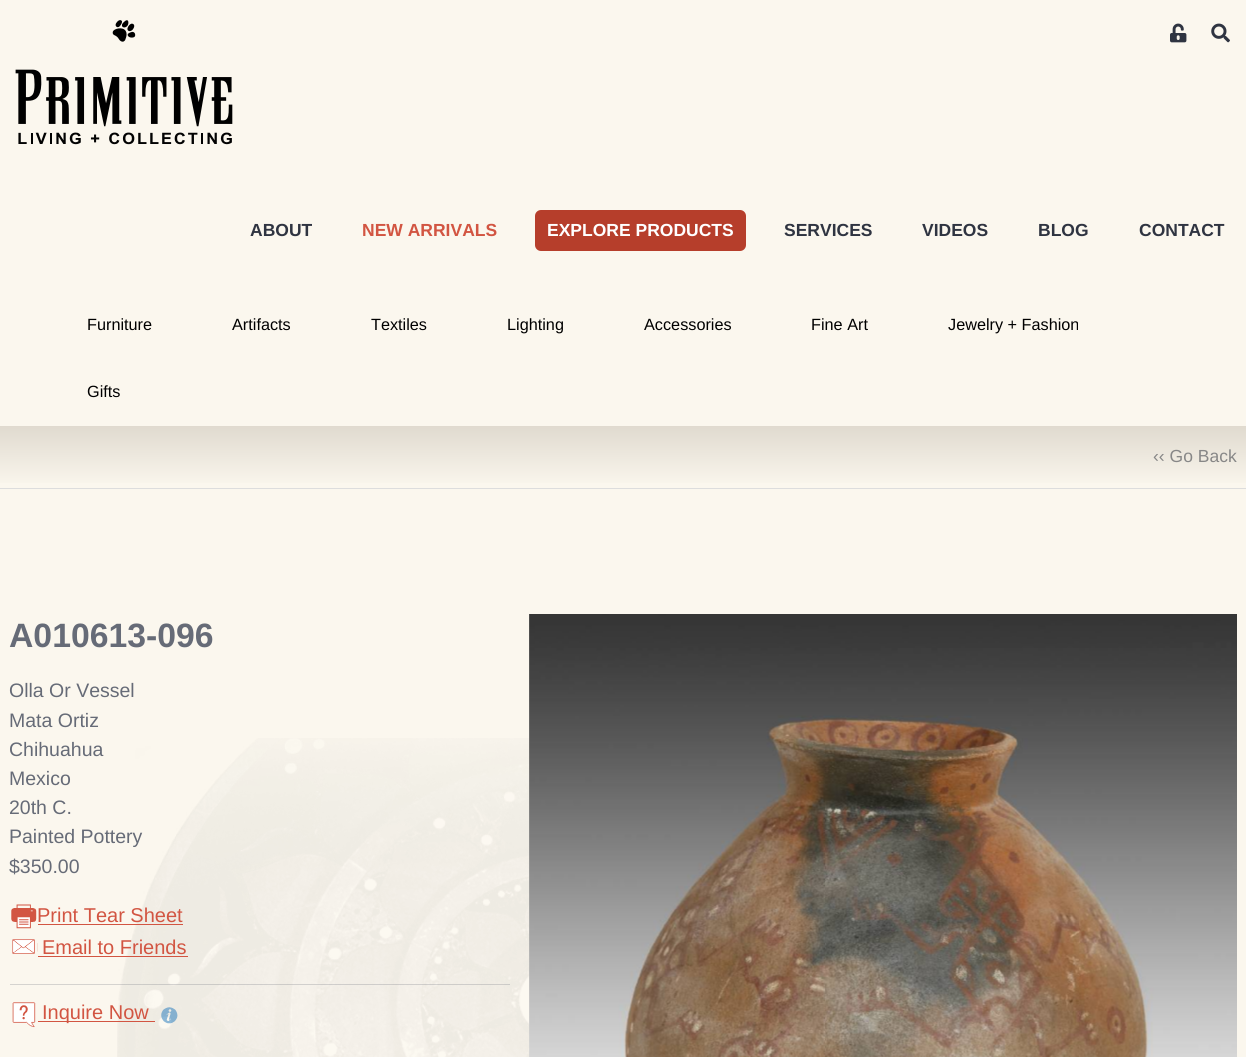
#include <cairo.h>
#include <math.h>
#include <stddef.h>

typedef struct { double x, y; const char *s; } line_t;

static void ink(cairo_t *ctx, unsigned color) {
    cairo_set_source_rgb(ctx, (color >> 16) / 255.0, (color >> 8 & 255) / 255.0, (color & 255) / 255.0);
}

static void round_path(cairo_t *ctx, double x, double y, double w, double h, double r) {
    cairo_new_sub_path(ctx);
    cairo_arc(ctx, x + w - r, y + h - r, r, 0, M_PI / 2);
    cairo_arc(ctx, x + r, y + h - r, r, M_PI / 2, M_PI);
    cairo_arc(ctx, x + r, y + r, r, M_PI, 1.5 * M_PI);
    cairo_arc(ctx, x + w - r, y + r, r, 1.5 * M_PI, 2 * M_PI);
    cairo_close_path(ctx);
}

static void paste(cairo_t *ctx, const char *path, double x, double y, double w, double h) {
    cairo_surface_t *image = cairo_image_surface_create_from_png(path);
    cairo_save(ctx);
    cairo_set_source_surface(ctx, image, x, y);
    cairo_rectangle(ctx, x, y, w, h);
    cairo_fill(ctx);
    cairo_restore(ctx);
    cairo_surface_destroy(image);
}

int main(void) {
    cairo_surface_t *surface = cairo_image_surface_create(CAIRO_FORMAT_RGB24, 1246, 1057);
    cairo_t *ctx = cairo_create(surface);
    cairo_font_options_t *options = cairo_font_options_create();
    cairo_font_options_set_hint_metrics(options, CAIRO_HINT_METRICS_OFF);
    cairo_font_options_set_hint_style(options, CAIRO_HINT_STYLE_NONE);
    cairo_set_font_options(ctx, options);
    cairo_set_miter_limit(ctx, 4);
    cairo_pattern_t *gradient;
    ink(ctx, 0xFBF7EE);
    cairo_paint(ctx);
    paste(ctx, "media/1.png", 15, 20, 218, 125);
    paste(ctx, "media/2.png", 1170, 23, 17, 20);
    paste(ctx, "media/3.png", 1211, 23, 19, 20);
    cairo_select_font_face(ctx, "Liberation Sans", CAIRO_FONT_SLANT_NORMAL, CAIRO_FONT_WEIGHT_BOLD);
    cairo_set_font_size(ctx, 17.5);
    ink(ctx, 0x2F3441);
    cairo_move_to(ctx, 250, 236);
    cairo_show_text(ctx, "ABOUT");
    ink(ctx, 0xD25542);
    cairo_move_to(ctx, 362, 236);
    cairo_show_text(ctx, "NEW ARRIVALS");
    ink(ctx, 0xB63E2B);
    round_path(ctx, 535, 210, 211, 41, 6);
    cairo_fill(ctx);
    ink(ctx, 0xFFFFFF);
    cairo_move_to(ctx, 547, 236);
    cairo_show_text(ctx, "EXPLORE PRODUCTS");
    ink(ctx, 0x2F3441);
    {
        static const line_t items[] = {
            {784, 236, "SERVICES"},
            {922, 236, "VIDEOS"},
            {1038, 236, "BLOG"},
            {1139, 236, "CONTACT"},
        };
        for (size_t i = 0; i < sizeof items / sizeof *items; i++) {
            cairo_move_to(ctx, items[i].x, items[i].y);
            cairo_show_text(ctx, items[i].s);
        }
    }
    cairo_select_font_face(ctx, "Liberation Sans", CAIRO_FONT_SLANT_NORMAL, CAIRO_FONT_WEIGHT_NORMAL);
    cairo_set_font_size(ctx, 16.25);
    ink(ctx, 0x000000);
    {
        static const line_t items[] = {
            {87, 330, "Furniture"},
            {232, 330, "Artifacts"},
            {371, 330, "Textiles"},
            {507, 330, "Lighting"},
            {644, 330, "Accessories"},
            {811, 330, "Fine Art"},
            {948, 330, "Jewelry + Fashion"},
            {87, 397, "Gifts"},
        };
        for (size_t i = 0; i < sizeof items / sizeof *items; i++) {
            cairo_move_to(ctx, items[i].x, items[i].y);
            cairo_show_text(ctx, items[i].s);
        }
    }
    gradient = cairo_pattern_create_linear(623, 488, 623, 426);
    cairo_pattern_add_color_stop_rgba(gradient, 0, 0.984, 0.969, 0.933, 1);
    cairo_pattern_add_color_stop_rgba(gradient, 1, 0.878, 0.855, 0.812, 1);
    cairo_set_source(ctx, gradient);
    cairo_pattern_destroy(gradient);
    cairo_rectangle(ctx, 0, 426, 1246, 57);
    cairo_fill(ctx);
    ink(ctx, 0xDDDDDD);
    cairo_rectangle(ctx, 0, 488, 1246, 1);
    cairo_fill(ctx);
    cairo_set_font_size(ctx, 17.5);
    ink(ctx, 0x878787);
    cairo_move_to(ctx, 1153, 462);
    cairo_show_text(ctx, "‹‹ Go Back");
    paste(ctx, "media/4.png", 117, 738, 413, 319);
    cairo_select_font_face(ctx, "Liberation Sans", CAIRO_FONT_SLANT_NORMAL, CAIRO_FONT_WEIGHT_BOLD);
    cairo_set_font_size(ctx, 33.75);
    ink(ctx, 0x666B77);
    cairo_move_to(ctx, 9, 647);
    cairo_show_text(ctx, "A010613-096");
    cairo_select_font_face(ctx, "Liberation Sans", CAIRO_FONT_SLANT_NORMAL, CAIRO_FONT_WEIGHT_NORMAL);
    cairo_set_font_size(ctx, 19.5);
    {
        static const line_t items[] = {
            {9, 697, "Olla Or Vessel"},
            {9, 727, "Mata Ortiz"},
            {9, 756, "Chihuahua"},
            {9, 785, "Mexico"},
            {9, 814, "20th C."},
            {9, 843, "Painted Pottery"},
            {9, 873, "$350.00"},
        };
        for (size_t i = 0; i < sizeof items / sizeof *items; i++) {
            cairo_move_to(ctx, items[i].x, items[i].y);
            cairo_show_text(ctx, items[i].s);
        }
    }
    paste(ctx, "media/5.png", 11, 904, 26, 25);
    cairo_set_font_size(ctx, 20);
    ink(ctx, 0xD25542);
    cairo_move_to(ctx, 37, 922);
    cairo_show_text(ctx, "Print Tear Sheet");
    cairo_rectangle(ctx, 38, 924, 145, 1);
    cairo_fill(ctx);
    paste(ctx, "media/6.png", 12, 939, 26, 15);
    cairo_move_to(ctx, 42, 954);
    cairo_show_text(ctx, "Email to Friends");
    cairo_rectangle(ctx, 38, 956, 150, 1);
    cairo_fill(ctx);
    cairo_set_source_rgba(ctx, 0.4, 0.42, 0.467, 0.25);
    cairo_rectangle(ctx, 10, 984, 500, 1);
    cairo_fill(ctx);
    paste(ctx, "media/7.png", 12, 1002, 24, 26);
    ink(ctx, 0xD25542);
    cairo_rectangle(ctx, 38, 1021, 117, 1);
    cairo_fill(ctx);
    cairo_move_to(ctx, 42, 1019);
    cairo_show_text(ctx, "Inquire Now");
    paste(ctx, "media/8.png", 161, 1007, 17, 17);
    paste(ctx, "media/9.png", 529, 614, 708, 443);
    cairo_surface_write_to_png(surface, "image.png");
    cairo_font_options_destroy(options);
    cairo_destroy(ctx);
    cairo_surface_destroy(surface);
    return 0;
}
